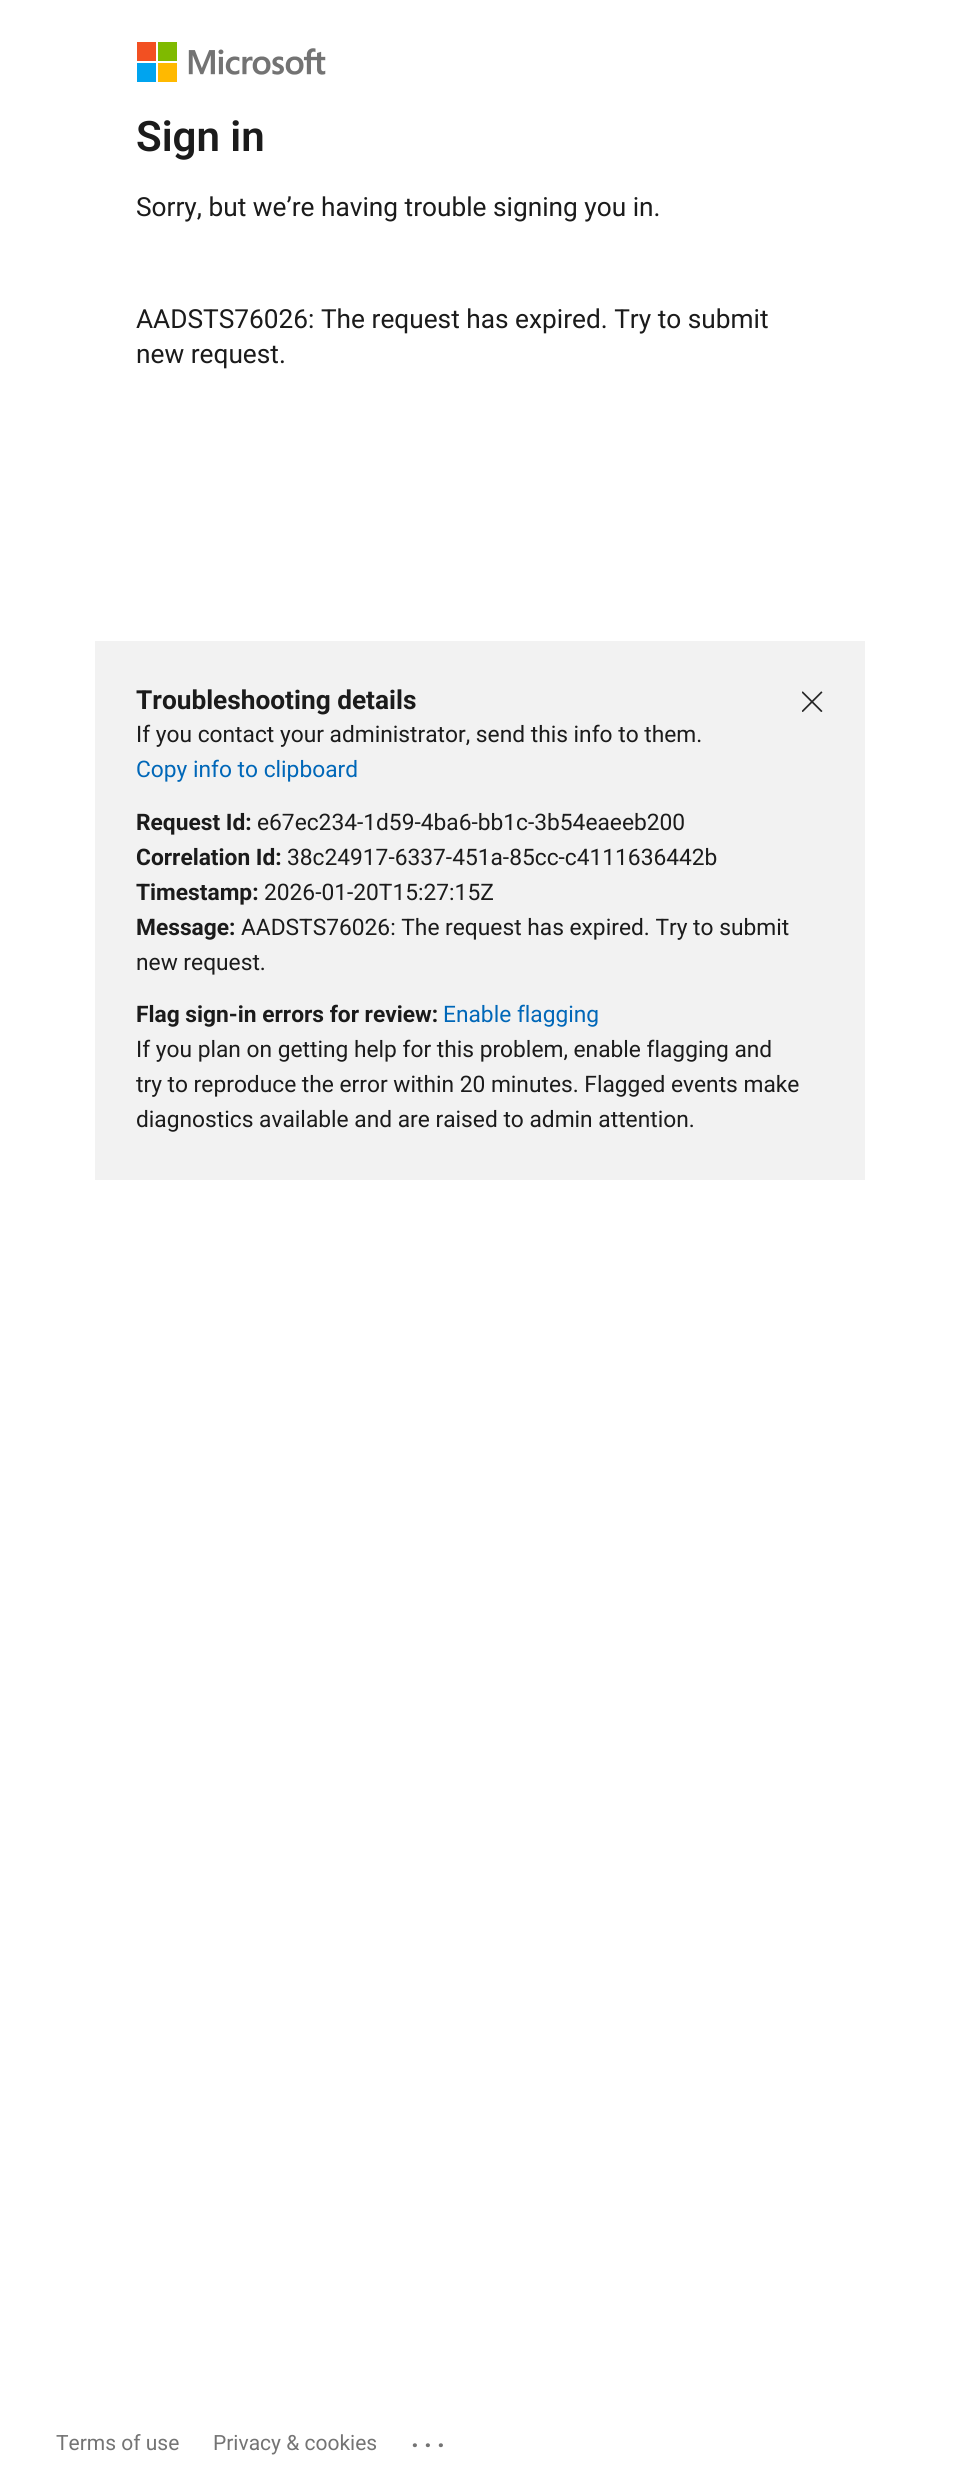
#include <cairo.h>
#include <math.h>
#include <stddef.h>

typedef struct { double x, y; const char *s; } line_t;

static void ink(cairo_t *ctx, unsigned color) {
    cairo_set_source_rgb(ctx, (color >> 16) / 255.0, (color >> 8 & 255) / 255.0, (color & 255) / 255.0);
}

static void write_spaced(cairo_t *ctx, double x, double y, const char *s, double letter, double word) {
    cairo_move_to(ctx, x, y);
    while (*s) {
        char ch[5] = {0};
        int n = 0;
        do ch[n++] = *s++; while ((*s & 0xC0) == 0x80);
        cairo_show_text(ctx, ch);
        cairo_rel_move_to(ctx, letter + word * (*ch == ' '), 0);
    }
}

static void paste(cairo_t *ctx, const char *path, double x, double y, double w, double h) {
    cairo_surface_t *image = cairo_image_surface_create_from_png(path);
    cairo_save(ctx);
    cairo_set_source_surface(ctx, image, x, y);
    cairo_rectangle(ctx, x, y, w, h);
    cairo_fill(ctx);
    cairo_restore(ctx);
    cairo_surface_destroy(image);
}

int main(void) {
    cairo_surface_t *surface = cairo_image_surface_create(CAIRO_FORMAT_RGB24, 957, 2467);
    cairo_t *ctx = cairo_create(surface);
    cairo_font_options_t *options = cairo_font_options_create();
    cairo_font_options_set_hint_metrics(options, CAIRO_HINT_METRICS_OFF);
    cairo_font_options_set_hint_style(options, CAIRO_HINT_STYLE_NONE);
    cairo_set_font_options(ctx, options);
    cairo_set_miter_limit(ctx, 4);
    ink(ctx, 0xFFFFFF);
    cairo_paint(ctx);
    paste(ctx, "media/1.png", 137, 42, 189, 40);
    cairo_select_font_face(ctx, "Roboto SemiBold", CAIRO_FONT_SLANT_NORMAL, CAIRO_FONT_WEIGHT_NORMAL);
    cairo_set_font_size(ctx, 42);
    ink(ctx, 0x1B1B1B);
    cairo_move_to(ctx, 136, 151);
    cairo_show_text(ctx, "Sign in");
    cairo_select_font_face(ctx, "Roboto", CAIRO_FONT_SLANT_NORMAL, CAIRO_FONT_WEIGHT_NORMAL);
    cairo_set_font_size(ctx, 26.25);
    {
        static const line_t items[] = {
            {136, 216, "Sorry, but we’re having trouble signing you in."},
            {136, 328, "AADSTS76026: The request has expired. Try to submit"},
            {136, 363, "new request."},
        };
        for (size_t i = 0; i < sizeof items / sizeof *items; i++) {
            cairo_move_to(ctx, items[i].x, items[i].y);
            cairo_show_text(ctx, items[i].s);
        }
    }
    ink(ctx, 0xF2F2F2);
    cairo_rectangle(ctx, 95, 641, 770, 539);
    cairo_fill(ctx);
    cairo_select_font_face(ctx, "Roboto", CAIRO_FONT_SLANT_NORMAL, CAIRO_FONT_WEIGHT_BOLD);
    ink(ctx, 0x1B1B1B);
    cairo_move_to(ctx, 136, 709);
    cairo_show_text(ctx, "Troubleshooting details");
    cairo_select_font_face(ctx, "Roboto", CAIRO_FONT_SLANT_NORMAL, CAIRO_FONT_WEIGHT_NORMAL);
    cairo_set_font_size(ctx, 22.75);
    cairo_move_to(ctx, 136, 742);
    cairo_show_text(ctx, "If you contact your administrator, send this info to them.");
    ink(ctx, 0x0067B8);
    cairo_move_to(ctx, 136, 777);
    cairo_show_text(ctx, "Copy info to clipboard");
    cairo_select_font_face(ctx, "Roboto", CAIRO_FONT_SLANT_NORMAL, CAIRO_FONT_WEIGHT_BOLD);
    ink(ctx, 0x1B1B1B);
    cairo_move_to(ctx, 136, 830);
    cairo_show_text(ctx, "Request Id:");
    cairo_select_font_face(ctx, "Roboto", CAIRO_FONT_SLANT_NORMAL, CAIRO_FONT_WEIGHT_NORMAL);
    cairo_move_to(ctx, 257, 830);
    cairo_show_text(ctx, "e67ec234-1d59-4ba6-bb1c-3b54eaeeb200");
    cairo_select_font_face(ctx, "Roboto", CAIRO_FONT_SLANT_NORMAL, CAIRO_FONT_WEIGHT_BOLD);
    cairo_move_to(ctx, 136, 865);
    cairo_show_text(ctx, "Correlation Id:");
    cairo_select_font_face(ctx, "Roboto", CAIRO_FONT_SLANT_NORMAL, CAIRO_FONT_WEIGHT_NORMAL);
    cairo_move_to(ctx, 287, 865);
    cairo_show_text(ctx, "38c24917-6337-451a-85cc-c4111636442b");
    cairo_select_font_face(ctx, "Roboto", CAIRO_FONT_SLANT_NORMAL, CAIRO_FONT_WEIGHT_BOLD);
    cairo_move_to(ctx, 136, 900);
    cairo_show_text(ctx, "Timestamp:");
    cairo_select_font_face(ctx, "Roboto", CAIRO_FONT_SLANT_NORMAL, CAIRO_FONT_WEIGHT_NORMAL);
    cairo_move_to(ctx, 264, 900);
    cairo_show_text(ctx, "2026-01-20T15:27:15Z");
    cairo_select_font_face(ctx, "Roboto", CAIRO_FONT_SLANT_NORMAL, CAIRO_FONT_WEIGHT_BOLD);
    cairo_move_to(ctx, 136, 935);
    cairo_show_text(ctx, "Message:");
    cairo_select_font_face(ctx, "Roboto", CAIRO_FONT_SLANT_NORMAL, CAIRO_FONT_WEIGHT_NORMAL);
    cairo_move_to(ctx, 241, 935);
    cairo_show_text(ctx, "AADSTS76026: The request has expired. Try to submit");
    cairo_move_to(ctx, 136, 970);
    cairo_show_text(ctx, "new request.");
    cairo_select_font_face(ctx, "Roboto", CAIRO_FONT_SLANT_NORMAL, CAIRO_FONT_WEIGHT_BOLD);
    cairo_move_to(ctx, 136, 1022);
    cairo_show_text(ctx, "Flag sign-in errors for review:");
    cairo_select_font_face(ctx, "Roboto", CAIRO_FONT_SLANT_NORMAL, CAIRO_FONT_WEIGHT_NORMAL);
    ink(ctx, 0x0067B8);
    cairo_move_to(ctx, 443, 1022);
    cairo_show_text(ctx, "Enable flagging");
    ink(ctx, 0x1B1B1B);
    {
        static const line_t items[] = {
            {136, 1057, "If you plan on getting help for this problem, enable flagging and"},
            {136, 1092, "try to reproduce the error within 20 minutes. Flagged events make"},
            {136, 1127, "diagnostics available and are raised to admin attention."},
        };
        for (size_t i = 0; i < sizeof items / sizeof *items; i++) {
            cairo_move_to(ctx, items[i].x, items[i].y);
            cairo_show_text(ctx, items[i].s);
        }
    }
    paste(ctx, "media/2.png", 802, 691, 21, 21);
    cairo_set_font_size(ctx, 21);
    ink(ctx, 0x747474);
    cairo_move_to(ctx, 56, 2450);
    cairo_show_text(ctx, "Terms of use");
    cairo_move_to(ctx, 213, 2450);
    cairo_show_text(ctx, "Privacy & cookies");
    cairo_select_font_face(ctx, "Roboto SemiBold", CAIRO_FONT_SLANT_NORMAL, CAIRO_FONT_WEIGHT_NORMAL);
    cairo_set_font_size(ctx, 28);
    write_spaced(ctx, 411, 2447, "...", 5, 0);
    cairo_surface_write_to_png(surface, "image.png");
    cairo_font_options_destroy(options);
    cairo_destroy(ctx);
    cairo_surface_destroy(surface);
    return 0;
}
